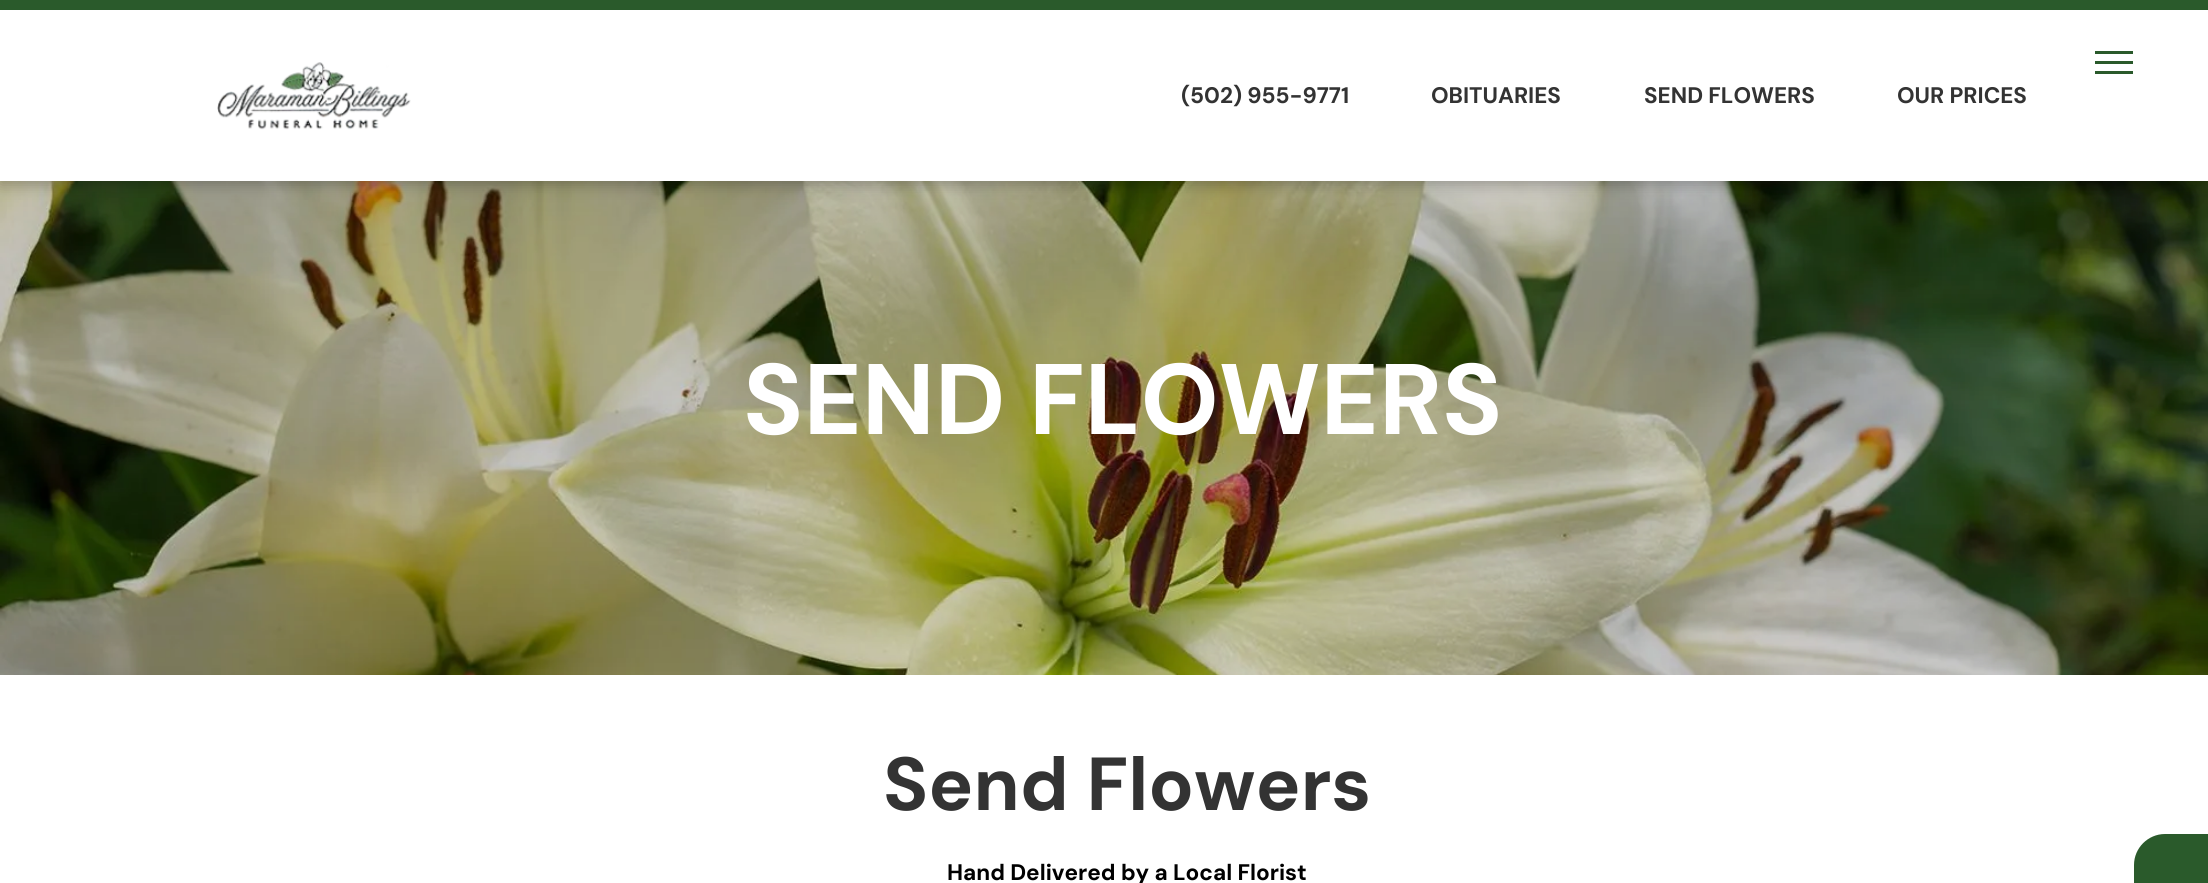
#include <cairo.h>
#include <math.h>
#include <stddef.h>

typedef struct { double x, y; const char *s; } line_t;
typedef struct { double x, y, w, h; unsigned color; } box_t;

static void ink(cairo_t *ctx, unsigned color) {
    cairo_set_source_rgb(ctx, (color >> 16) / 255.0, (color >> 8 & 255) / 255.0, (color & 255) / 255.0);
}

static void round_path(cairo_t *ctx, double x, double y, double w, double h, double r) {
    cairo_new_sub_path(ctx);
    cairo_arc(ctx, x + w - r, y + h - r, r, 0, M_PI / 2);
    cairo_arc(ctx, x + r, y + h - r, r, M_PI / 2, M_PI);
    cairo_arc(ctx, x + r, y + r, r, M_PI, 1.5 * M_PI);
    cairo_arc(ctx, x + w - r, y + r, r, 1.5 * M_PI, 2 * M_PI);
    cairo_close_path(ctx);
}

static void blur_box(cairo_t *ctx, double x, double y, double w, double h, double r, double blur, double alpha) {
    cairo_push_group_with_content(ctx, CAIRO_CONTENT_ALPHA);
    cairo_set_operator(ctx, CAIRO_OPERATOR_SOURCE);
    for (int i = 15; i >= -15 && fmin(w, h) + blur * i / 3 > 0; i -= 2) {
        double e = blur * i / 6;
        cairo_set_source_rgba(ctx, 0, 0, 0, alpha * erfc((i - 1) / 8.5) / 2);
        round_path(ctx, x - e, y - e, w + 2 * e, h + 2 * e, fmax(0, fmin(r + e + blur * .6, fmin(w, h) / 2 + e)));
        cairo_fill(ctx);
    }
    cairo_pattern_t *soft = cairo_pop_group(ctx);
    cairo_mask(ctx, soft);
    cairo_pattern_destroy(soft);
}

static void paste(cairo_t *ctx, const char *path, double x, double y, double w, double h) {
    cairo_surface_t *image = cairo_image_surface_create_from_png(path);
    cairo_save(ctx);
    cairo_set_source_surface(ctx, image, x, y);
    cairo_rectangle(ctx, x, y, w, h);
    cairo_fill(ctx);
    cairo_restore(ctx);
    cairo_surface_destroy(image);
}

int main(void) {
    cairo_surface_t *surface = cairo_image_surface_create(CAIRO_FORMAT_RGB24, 2208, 883);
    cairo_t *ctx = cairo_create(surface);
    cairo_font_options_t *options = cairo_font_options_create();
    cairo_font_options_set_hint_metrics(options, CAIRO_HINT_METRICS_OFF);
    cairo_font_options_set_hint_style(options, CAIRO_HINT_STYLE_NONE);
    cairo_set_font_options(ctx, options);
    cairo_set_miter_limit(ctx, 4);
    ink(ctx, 0xFFFFFF);
    cairo_paint(ctx);
    paste(ctx, "media/2.png", 0, 181, 2208, 494);
    ink(ctx, 0x000000);
    blur_box(ctx, 0, 4, 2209, 181, 0, 7, 0.25);
    {
        static const box_t items[] = {
            {0, 10, 2208, 171, 0xFFFFFF},
            {2095, 51, 38, 3, 0x2A5A2B},
            {2095, 61, 38, 3, 0x2A5A2B},
            {2095, 71, 38, 3, 0x2A5A2B},
            {0, 0, 2208, 10, 0x2A5A2B},
        };
        for (size_t i = 0; i < sizeof items / sizeof *items; i++) {
            ink(ctx, items[i].color);
            cairo_rectangle(ctx, items[i].x, items[i].y, items[i].w, items[i].h);
            cairo_fill(ctx);
        }
    }
    paste(ctx, "media/1.png", 217, 62, 194, 68);
    cairo_select_font_face(ctx, "DM Sans", CAIRO_FONT_SLANT_NORMAL, CAIRO_FONT_WEIGHT_BOLD);
    cairo_set_font_size(ctx, 22.5);
    ink(ctx, 0x333333);
    {
        static const line_t items[] = {
            {1181, 103, "(502) 955-9771"},
            {1431, 103, "OBITUARIES"},
            {1644, 103, "SEND FLOWERS"},
            {1897, 103, "OUR PRICES"},
        };
        for (size_t i = 0; i < sizeof items / sizeof *items; i++) {
            cairo_move_to(ctx, items[i].x, items[i].y);
            cairo_show_text(ctx, items[i].s);
        }
    }
    cairo_set_font_size(ctx, 100);
    ink(ctx, 0xFFFFFF);
    cairo_move_to(ctx, 743, 434);
    cairo_show_text(ctx, "SEND FLOWERS");
    cairo_set_font_size(ctx, 75);
    ink(ctx, 0x333333);
    cairo_move_to(ctx, 883, 810);
    cairo_show_text(ctx, "Send Flowers");
    cairo_set_font_size(ctx, 22.5);
    ink(ctx, 0x000000);
    cairo_move_to(ctx, 947, 880);
    cairo_show_text(ctx, "Hand Delivered by a Local Florist");
    ink(ctx, 0x2A5A2B);
    cairo_new_path(ctx);
    cairo_move_to(ctx, 2165, 834);
    cairo_line_to(ctx, 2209, 834);
    cairo_line_to(ctx, 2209, 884);
    cairo_line_to(ctx, 2134, 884);
    cairo_line_to(ctx, 2134, 865);
    cairo_curve_to(ctx, 2134, 848, 2148, 834, 2165, 834);
    cairo_close_path(ctx);
    cairo_fill(ctx);
    cairo_surface_write_to_png(surface, "image.png");
    cairo_font_options_destroy(options);
    cairo_destroy(ctx);
    cairo_surface_destroy(surface);
    return 0;
}
